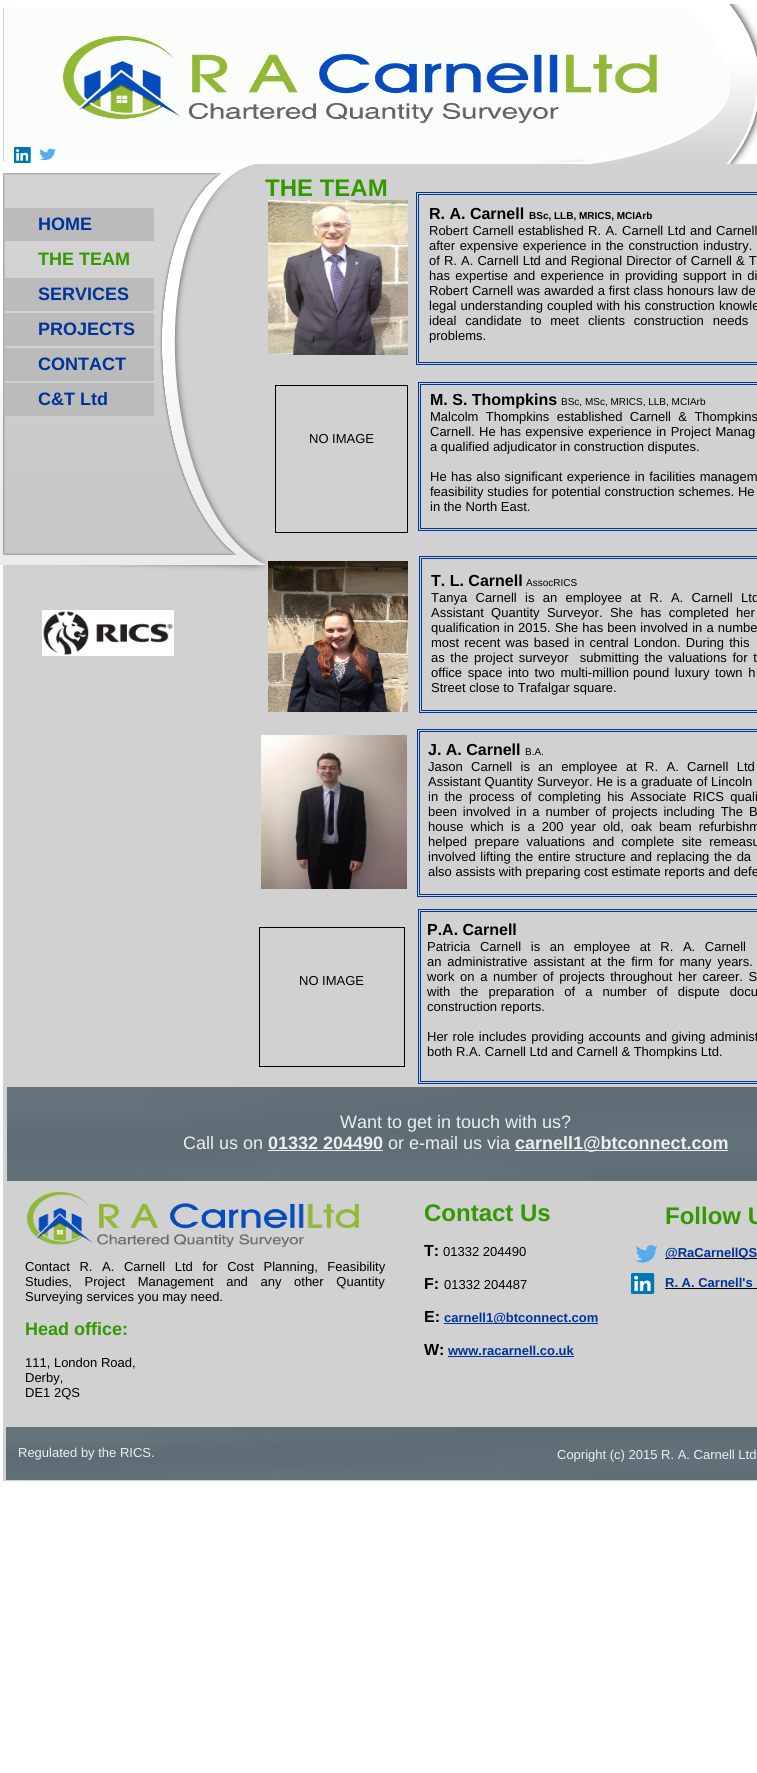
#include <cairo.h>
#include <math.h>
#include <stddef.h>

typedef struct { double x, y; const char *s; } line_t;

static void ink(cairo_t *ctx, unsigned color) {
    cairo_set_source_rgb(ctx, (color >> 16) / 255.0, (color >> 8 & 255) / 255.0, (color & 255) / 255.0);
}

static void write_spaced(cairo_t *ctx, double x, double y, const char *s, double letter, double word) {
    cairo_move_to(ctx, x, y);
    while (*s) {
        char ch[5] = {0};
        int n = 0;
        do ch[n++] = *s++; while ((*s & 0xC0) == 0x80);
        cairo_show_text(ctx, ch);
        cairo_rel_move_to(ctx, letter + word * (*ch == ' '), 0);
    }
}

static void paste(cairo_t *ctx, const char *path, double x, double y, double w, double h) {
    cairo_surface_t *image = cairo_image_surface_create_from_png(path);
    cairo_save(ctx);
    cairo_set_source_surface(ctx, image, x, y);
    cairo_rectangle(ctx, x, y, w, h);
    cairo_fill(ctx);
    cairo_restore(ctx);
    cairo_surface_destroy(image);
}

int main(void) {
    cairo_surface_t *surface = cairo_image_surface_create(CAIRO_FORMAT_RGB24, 757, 1773);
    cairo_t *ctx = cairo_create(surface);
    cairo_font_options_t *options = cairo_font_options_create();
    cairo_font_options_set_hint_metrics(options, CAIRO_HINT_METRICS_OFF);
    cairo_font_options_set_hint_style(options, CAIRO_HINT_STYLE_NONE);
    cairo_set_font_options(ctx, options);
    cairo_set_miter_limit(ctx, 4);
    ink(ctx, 0xFFFFFF);
    cairo_paint(ctx);
    ink(ctx, 0xD1D1D1);
    cairo_rectangle(ctx, 3, 8, 754, 1473);
    cairo_fill(ctx);
    ink(ctx, 0xFBFDFB);
    cairo_rectangle(ctx, 4, 8, 753, 156);
    cairo_fill(ctx);
    paste(ctx, "media/1.png", 541, 4, 216, 160);
    paste(ctx, "media/2.png", 63, 36, 594, 87);
    paste(ctx, "media/5.png", 0, 161, 268, 410);
    paste(ctx, "media/3.png", 14, 147, 17, 16);
    paste(ctx, "media/4.png", 39, 148, 17, 13);
    cairo_select_font_face(ctx, "Liberation Sans", CAIRO_FONT_SLANT_NORMAL, CAIRO_FONT_WEIGHT_BOLD);
    cairo_set_font_size(ctx, 24);
    ink(ctx, 0x339900);
    cairo_move_to(ctx, 265, 196);
    cairo_show_text(ctx, "THE TEAM");
    paste(ctx, "media/6.png", 268, 200, 140, 155);
    cairo_rectangle(ctx, 416.5, 192.5, 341, 172);
    ink(ctx, 0x003399);
    cairo_set_line_width(ctx, 1);
    cairo_stroke(ctx);
    cairo_rectangle(ctx, 418.5, 194.5, 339, 168);
    cairo_stroke(ctx);
    ink(ctx, 0xBBBBBB);
    cairo_rectangle(ctx, 4, 208, 150, 33);
    cairo_fill(ctx);
    cairo_set_font_size(ctx, 18);
    ink(ctx, 0x003399);
    cairo_move_to(ctx, 38, 230);
    cairo_show_text(ctx, "HOME");
    ink(ctx, 0x339900);
    cairo_move_to(ctx, 38, 265);
    cairo_show_text(ctx, "THE TEAM");
    ink(ctx, 0xBBBBBB);
    cairo_rectangle(ctx, 4, 278, 150, 33);
    cairo_fill(ctx);
    ink(ctx, 0x003399);
    cairo_move_to(ctx, 38, 300);
    cairo_show_text(ctx, "SERVICES");
    ink(ctx, 0xBBBBBB);
    cairo_rectangle(ctx, 4, 313, 150, 33);
    cairo_fill(ctx);
    ink(ctx, 0x003399);
    cairo_move_to(ctx, 38, 335);
    cairo_show_text(ctx, "PROJECTS");
    ink(ctx, 0xBBBBBB);
    cairo_rectangle(ctx, 4, 348, 150, 33);
    cairo_fill(ctx);
    ink(ctx, 0x003399);
    cairo_move_to(ctx, 38, 370);
    cairo_show_text(ctx, "CONTACT");
    ink(ctx, 0xBBBBBB);
    cairo_rectangle(ctx, 5, 383, 149, 33);
    cairo_fill(ctx);
    ink(ctx, 0x003399);
    cairo_move_to(ctx, 38, 405);
    cairo_show_text(ctx, "C&T Ltd");
    cairo_set_font_size(ctx, 16);
    ink(ctx, 0x000000);
    cairo_move_to(ctx, 429, 219);
    cairo_show_text(ctx, "R. A. Carnell");
    cairo_set_font_size(ctx, 10);
    cairo_move_to(ctx, 529, 219);
    cairo_show_text(ctx, "BSc, LLB, MRICS, MCIArb");
    cairo_select_font_face(ctx, "Liberation Sans", CAIRO_FONT_SLANT_NORMAL, CAIRO_FONT_WEIGHT_NORMAL);
    cairo_set_font_size(ctx, 13);
    write_spaced(ctx, 429, 235, "Robert Carnell established R. A. Carnell Ltd and Carnell", 0, 0.75);
    write_spaced(ctx, 429, 250, "after expensive experience in the construction industry.", 0, 1);
    write_spaced(ctx, 429, 265, "of R. A. Carnell Ltd and Regional Director of Carnell & T", 0, 0.5);
    write_spaced(ctx, 429, 280, "has expertise and experience in providing support in di", 0, 1.75);
    write_spaced(ctx, 429, 295, "Robert Carnell was awarded a first class honours law de", 0, 0.25);
    write_spaced(ctx, 429, 310, "legal understanding coupled with his construction knowle", 0, 0.5);
    write_spaced(ctx, 429, 325, "ideal candidate to meet clients construction needs", 0, 5.25);
    cairo_move_to(ctx, 429, 340);
    cairo_show_text(ctx, "problems.");
    cairo_rectangle(ctx, 418.5, 382.5, 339, 148);
    ink(ctx, 0x003399);
    cairo_stroke(ctx);
    cairo_rectangle(ctx, 420.5, 384.5, 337, 144);
    cairo_stroke(ctx);
    cairo_rectangle(ctx, 275.5, 385.5, 132, 147);
    ink(ctx, 0x000000);
    cairo_stroke(ctx);
    cairo_move_to(ctx, 309, 443);
    cairo_show_text(ctx, "NO IMAGE");
    cairo_select_font_face(ctx, "Liberation Sans", CAIRO_FONT_SLANT_NORMAL, CAIRO_FONT_WEIGHT_BOLD);
    cairo_set_font_size(ctx, 16);
    cairo_move_to(ctx, 430, 405);
    cairo_show_text(ctx, "M. S. Thompkins");
    cairo_select_font_face(ctx, "Liberation Sans", CAIRO_FONT_SLANT_NORMAL, CAIRO_FONT_WEIGHT_NORMAL);
    cairo_set_font_size(ctx, 10);
    cairo_move_to(ctx, 561, 405);
    cairo_show_text(ctx, "BSc, MSc, MRICS, LLB, MCIArb");
    cairo_set_font_size(ctx, 13);
    write_spaced(ctx, 430, 421, "Malcolm Thompkins established Carnell & Thompkins", 0, 3.75);
    cairo_move_to(ctx, 430, 436);
    cairo_show_text(ctx, "Carnell.");
    write_spaced(ctx, 479, 436, "He has expensive experience in Project Manag", 0, 0.75);
    cairo_move_to(ctx, 430, 451);
    cairo_show_text(ctx, "a qualified adjudicator in construction disputes.");
    write_spaced(ctx, 430, 481, "He has also significant experience in facilities managem", 0, 0.75);
    write_spaced(ctx, 430, 496, "feasibility studies for potential construction schemes. He", 0, 0.25);
    cairo_move_to(ctx, 430, 511);
    cairo_show_text(ctx, "in the North East.");
    paste(ctx, "media/7.png", 268, 561, 140, 151);
    cairo_rectangle(ctx, 419.5, 556.5, 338, 156);
    ink(ctx, 0x003399);
    cairo_stroke(ctx);
    cairo_rectangle(ctx, 421.5, 558.5, 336, 152);
    cairo_stroke(ctx);
    paste(ctx, "media/8.png", 42, 610, 132, 46);
    cairo_select_font_face(ctx, "Liberation Sans", CAIRO_FONT_SLANT_NORMAL, CAIRO_FONT_WEIGHT_BOLD);
    cairo_set_font_size(ctx, 16);
    ink(ctx, 0x000000);
    cairo_move_to(ctx, 431, 586);
    cairo_show_text(ctx, "T. L. Carnell");
    cairo_select_font_face(ctx, "Liberation Sans", CAIRO_FONT_SLANT_NORMAL, CAIRO_FONT_WEIGHT_NORMAL);
    cairo_set_font_size(ctx, 10);
    cairo_move_to(ctx, 526, 586);
    cairo_show_text(ctx, "AssocRICS");
    cairo_set_font_size(ctx, 13);
    write_spaced(ctx, 431, 602, "Tanya Carnell is an employee at R. A. Carnell Ltd", 0, 4.75);
    write_spaced(ctx, 431, 617, "Assistant Quantity Surveyor. She has completed her", 0, 3.75);
    write_spaced(ctx, 431, 632, "qualification in 2015.", 0, 0.5);
    write_spaced(ctx, 555, 632, "She has been involved in a numbe", 0, 0.5);
    write_spaced(ctx, 431, 647, "most recent was based in central London. During this", 0, 1.5);
    {
        static const line_t items[] = {
            {431, 662, "as the project surveyor  submitting the valuations for t"},
            {431, 677, "office space into two multi-million"},
            {633, 677, "pound luxury town h"},
        };
        for (size_t i = 0; i < sizeof items / sizeof *items; i++) {
            write_spaced(ctx, items[i].x, items[i].y, items[i].s, 0, 2);
        }
    }
    cairo_move_to(ctx, 431, 692);
    cairo_show_text(ctx, "Street close to Trafalgar square.");
    paste(ctx, "media/9.png", 261, 735, 146, 154);
    ink(ctx, 0xA6A89F);
    cairo_rectangle(ctx, 509, 785, 1, 2);
    cairo_fill(ctx);
    cairo_rectangle(ctx, 417.5, 729.5, 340, 167);
    ink(ctx, 0x003399);
    cairo_stroke(ctx);
    cairo_rectangle(ctx, 419.5, 731.5, 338, 163);
    cairo_stroke(ctx);
    cairo_select_font_face(ctx, "Liberation Sans", CAIRO_FONT_SLANT_NORMAL, CAIRO_FONT_WEIGHT_BOLD);
    cairo_set_font_size(ctx, 16);
    ink(ctx, 0x000000);
    cairo_move_to(ctx, 428, 755);
    cairo_show_text(ctx, "J. A. Carnell");
    cairo_select_font_face(ctx, "Liberation Sans", CAIRO_FONT_SLANT_NORMAL, CAIRO_FONT_WEIGHT_NORMAL);
    cairo_set_font_size(ctx, 10);
    cairo_move_to(ctx, 525, 755);
    cairo_show_text(ctx, "B.A.");
    cairo_set_font_size(ctx, 13);
    write_spaced(ctx, 428, 771, "Jason Carnell is an employee at R. A. Carnell Ltd", 0, 4.75);
    write_spaced(ctx, 428, 786, "Assistant Quantity Surveyor. He is a graduate of Lincoln", 0, 0.25);
    write_spaced(ctx, 428, 801, "in the process of completing his Associate RICS quali", 0, 2.75);
    write_spaced(ctx, 428, 816, "been involved in a number of projects including The B", 0, 2.25);
    write_spaced(ctx, 428, 831, "house which is a 200 year old, oak beam refurbishm", 0, 3.5);
    write_spaced(ctx, 428, 846, "helped prepare valuations and complete site remeasu", 0, 3.75);
    write_spaced(ctx, 428, 861, "involved lifting the entire structure and replacing the da", 0, 1);
    cairo_move_to(ctx, 428, 876);
    cairo_show_text(ctx, "also assists with preparing cost estimate reports and defe");
    cairo_rectangle(ctx, 418.5, 909.5, 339, 174);
    ink(ctx, 0x003399);
    cairo_stroke(ctx);
    cairo_rectangle(ctx, 420.5, 911.5, 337, 170);
    cairo_stroke(ctx);
    cairo_rectangle(ctx, 259.5, 927.5, 145, 139);
    ink(ctx, 0x000000);
    cairo_stroke(ctx);
    cairo_move_to(ctx, 299, 985);
    cairo_show_text(ctx, "NO IMAGE");
    cairo_select_font_face(ctx, "Liberation Sans", CAIRO_FONT_SLANT_NORMAL, CAIRO_FONT_WEIGHT_BOLD);
    cairo_set_font_size(ctx, 16);
    cairo_move_to(ctx, 427, 935);
    cairo_show_text(ctx, "P.A. Carnell");
    cairo_select_font_face(ctx, "Liberation Sans", CAIRO_FONT_SLANT_NORMAL, CAIRO_FONT_WEIGHT_NORMAL);
    cairo_set_font_size(ctx, 13);
    write_spaced(ctx, 427, 951, "Patricia Carnell is an employee at R. A. Carnell", 0, 6);
    write_spaced(ctx, 427, 966, "an administrative assistant at the firm for many years.", 0, 2.25);
    write_spaced(ctx, 427, 981, "work on a number of projects throughout her career. S", 0, 2);
    write_spaced(ctx, 427, 996, "with the preparation of a number of dispute docu", 0, 6.5);
    cairo_move_to(ctx, 427, 1011);
    cairo_show_text(ctx, "construction reports.");
    write_spaced(ctx, 427, 1041, "Her role includes providing accounts and giving administ", 0, 1);
    cairo_move_to(ctx, 427, 1056);
    cairo_show_text(ctx, "both R.A. Carnell Ltd and Carnell & Thompkins Ltd.");
    paste(ctx, "media/10.png", 7, 1087, 750, 94);
    cairo_set_font_size(ctx, 18);
    ink(ctx, 0xEEEEEE);
    cairo_move_to(ctx, 340, 1128);
    cairo_show_text(ctx, "Want to get in touch with us?");
    cairo_move_to(ctx, 183, 1149);
    cairo_show_text(ctx, "Call us on");
    cairo_select_font_face(ctx, "Liberation Sans", CAIRO_FONT_SLANT_NORMAL, CAIRO_FONT_WEIGHT_BOLD);
    cairo_move_to(ctx, 268, 1149);
    cairo_show_text(ctx, "01332 204490");
    cairo_rectangle(ctx, 268, 1150, 115, 1);
    cairo_fill(ctx);
    cairo_select_font_face(ctx, "Liberation Sans", CAIRO_FONT_SLANT_NORMAL, CAIRO_FONT_WEIGHT_NORMAL);
    cairo_move_to(ctx, 388, 1149);
    cairo_show_text(ctx, "or e-mail us via");
    cairo_rectangle(ctx, 515, 1150, 213, 1);
    cairo_fill(ctx);
    cairo_select_font_face(ctx, "Liberation Sans", CAIRO_FONT_SLANT_NORMAL, CAIRO_FONT_WEIGHT_BOLD);
    cairo_move_to(ctx, 515, 1149);
    cairo_show_text(ctx, "carnell1@btconnect.com");
    paste(ctx, "media/11.png", 27, 1192, 332, 55);
    cairo_set_font_size(ctx, 24);
    ink(ctx, 0x339900);
    cairo_move_to(ctx, 424, 1221);
    cairo_show_text(ctx, "Contact Us");
    cairo_set_font_size(ctx, 16);
    ink(ctx, 0x000000);
    cairo_move_to(ctx, 424, 1256);
    cairo_show_text(ctx, "T:");
    cairo_select_font_face(ctx, "Liberation Sans", CAIRO_FONT_SLANT_NORMAL, CAIRO_FONT_WEIGHT_NORMAL);
    cairo_set_font_size(ctx, 13);
    cairo_move_to(ctx, 443, 1256);
    cairo_show_text(ctx, "01332 204490");
    cairo_select_font_face(ctx, "Liberation Sans", CAIRO_FONT_SLANT_NORMAL, CAIRO_FONT_WEIGHT_BOLD);
    cairo_set_font_size(ctx, 16);
    cairo_move_to(ctx, 424, 1289);
    cairo_show_text(ctx, "F:");
    cairo_select_font_face(ctx, "Liberation Sans", CAIRO_FONT_SLANT_NORMAL, CAIRO_FONT_WEIGHT_NORMAL);
    cairo_set_font_size(ctx, 13);
    cairo_move_to(ctx, 444, 1289);
    cairo_show_text(ctx, "01332 204487");
    cairo_select_font_face(ctx, "Liberation Sans", CAIRO_FONT_SLANT_NORMAL, CAIRO_FONT_WEIGHT_BOLD);
    cairo_set_font_size(ctx, 16);
    cairo_move_to(ctx, 424, 1322);
    cairo_show_text(ctx, "E:");
    ink(ctx, 0x003399);
    cairo_rectangle(ctx, 444, 1323, 154, 1);
    cairo_fill(ctx);
    cairo_set_font_size(ctx, 13);
    cairo_move_to(ctx, 444, 1322);
    cairo_show_text(ctx, "carnell1@btconnect.com");
    cairo_set_font_size(ctx, 16);
    ink(ctx, 0x000000);
    cairo_move_to(ctx, 424, 1355);
    cairo_show_text(ctx, "W:");
    cairo_set_font_size(ctx, 13);
    ink(ctx, 0x003399);
    cairo_move_to(ctx, 448, 1355);
    cairo_show_text(ctx, "www.racarnell.co.uk");
    cairo_rectangle(ctx, 448, 1356, 126, 1);
    cairo_fill(ctx);
    paste(ctx, "media/12.png", 635, 1245, 23, 18);
    cairo_set_font_size(ctx, 24);
    ink(ctx, 0x339900);
    cairo_move_to(ctx, 665, 1224);
    cairo_show_text(ctx, "Follow U");
    ink(ctx, 0x000000);
    cairo_rectangle(ctx, 665, 1258, 92, 1);
    cairo_fill(ctx);
    cairo_set_font_size(ctx, 13);
    ink(ctx, 0x003399);
    cairo_move_to(ctx, 665, 1257);
    cairo_show_text(ctx, "@RaCarnellQS");
    cairo_move_to(ctx, 665, 1287);
    cairo_show_text(ctx, "R. A. Carnell's");
    ink(ctx, 0x000000);
    cairo_rectangle(ctx, 665, 1288, 92, 1);
    cairo_fill(ctx);
    cairo_select_font_face(ctx, "Liberation Sans", CAIRO_FONT_SLANT_NORMAL, CAIRO_FONT_WEIGHT_NORMAL);
    write_spaced(ctx, 25, 1271, "Contact R. A. Carnell Ltd for Cost Planning, Feasibility", 0, 6);
    write_spaced(ctx, 25, 1286, "Studies, Project Management and any other Quantity", 0, 9);
    cairo_move_to(ctx, 25, 1301);
    cairo_show_text(ctx, "Surveying services you may need.");
    cairo_select_font_face(ctx, "Liberation Sans", CAIRO_FONT_SLANT_NORMAL, CAIRO_FONT_WEIGHT_BOLD);
    cairo_set_font_size(ctx, 18);
    ink(ctx, 0x339900);
    cairo_move_to(ctx, 25, 1335);
    cairo_show_text(ctx, "Head office:");
    cairo_select_font_face(ctx, "Liberation Sans", CAIRO_FONT_SLANT_NORMAL, CAIRO_FONT_WEIGHT_NORMAL);
    cairo_set_font_size(ctx, 13);
    ink(ctx, 0x000000);
    {
        static const line_t items[] = {
            {25, 1367, "111, London Road,"},
            {25, 1382, "Derby,"},
            {25, 1397, "DE1 2QS"},
        };
        for (size_t i = 0; i < sizeof items / sizeof *items; i++) {
            cairo_move_to(ctx, items[i].x, items[i].y);
            cairo_show_text(ctx, items[i].s);
        }
    }
    paste(ctx, "media/13.png", 631, 1273, 25, 21);
    paste(ctx, "media/14.png", 6, 1427, 751, 53);
    ink(ctx, 0xEEEEEE);
    cairo_move_to(ctx, 18, 1457);
    cairo_show_text(ctx, "Regulated by the RICS.");
    cairo_move_to(ctx, 557, 1459);
    cairo_show_text(ctx, "Copright (c) 2015 R. A. Carnell Ltd");
    cairo_surface_write_to_png(surface, "image.png");
    cairo_font_options_destroy(options);
    cairo_destroy(ctx);
    cairo_surface_destroy(surface);
    return 0;
}
